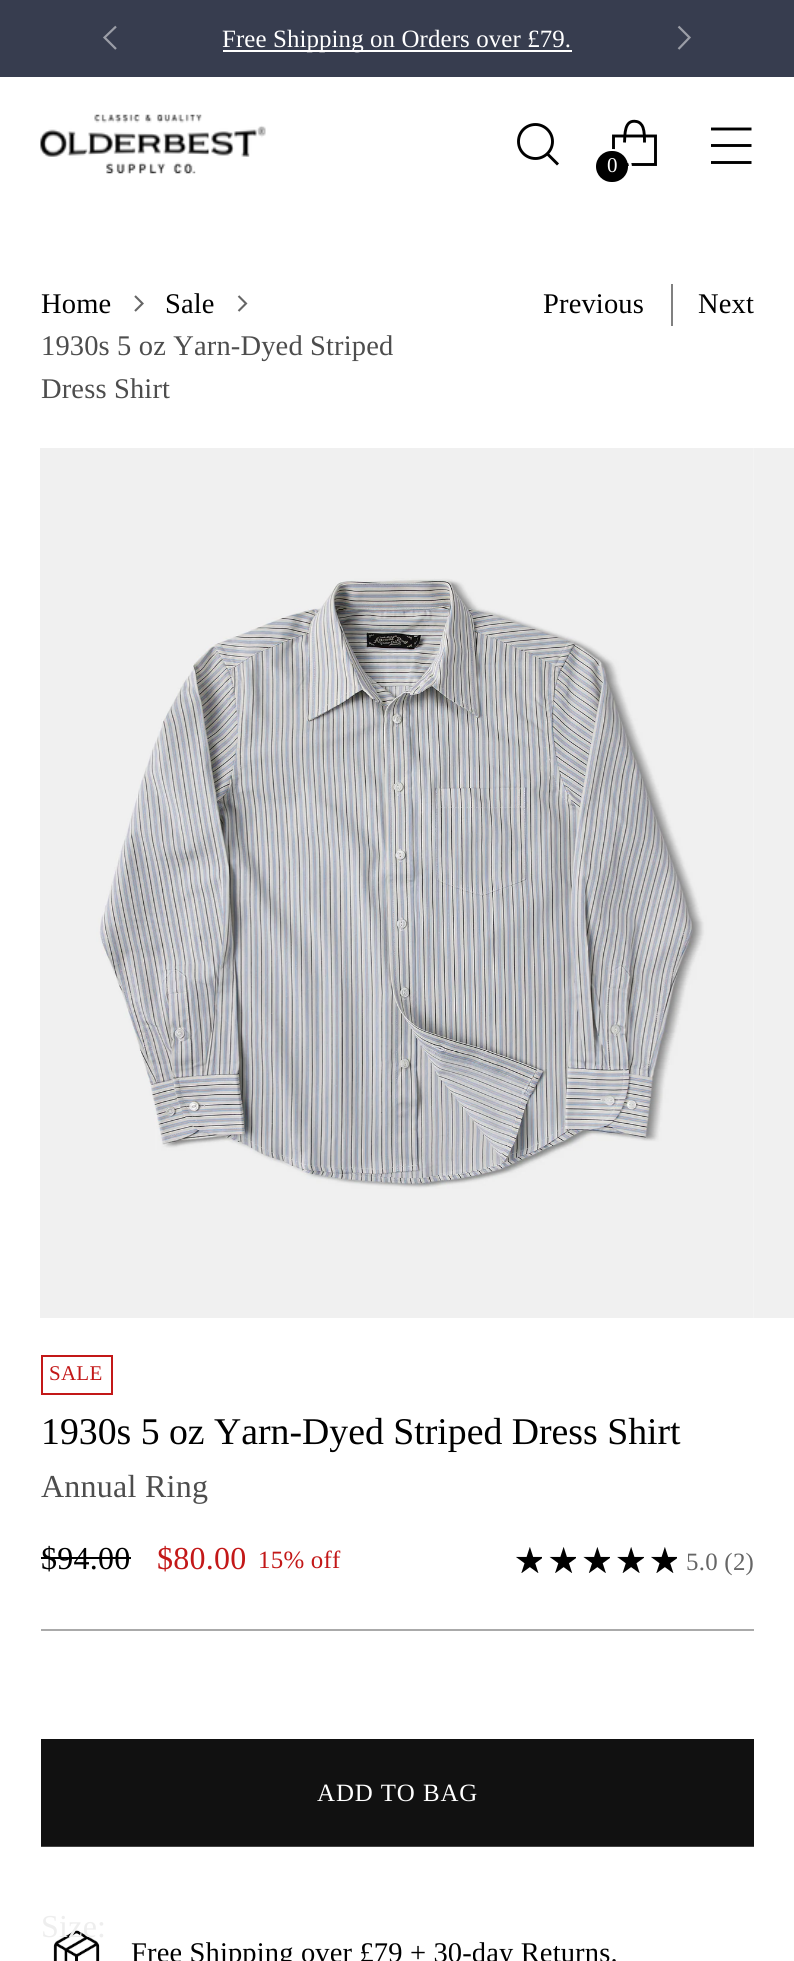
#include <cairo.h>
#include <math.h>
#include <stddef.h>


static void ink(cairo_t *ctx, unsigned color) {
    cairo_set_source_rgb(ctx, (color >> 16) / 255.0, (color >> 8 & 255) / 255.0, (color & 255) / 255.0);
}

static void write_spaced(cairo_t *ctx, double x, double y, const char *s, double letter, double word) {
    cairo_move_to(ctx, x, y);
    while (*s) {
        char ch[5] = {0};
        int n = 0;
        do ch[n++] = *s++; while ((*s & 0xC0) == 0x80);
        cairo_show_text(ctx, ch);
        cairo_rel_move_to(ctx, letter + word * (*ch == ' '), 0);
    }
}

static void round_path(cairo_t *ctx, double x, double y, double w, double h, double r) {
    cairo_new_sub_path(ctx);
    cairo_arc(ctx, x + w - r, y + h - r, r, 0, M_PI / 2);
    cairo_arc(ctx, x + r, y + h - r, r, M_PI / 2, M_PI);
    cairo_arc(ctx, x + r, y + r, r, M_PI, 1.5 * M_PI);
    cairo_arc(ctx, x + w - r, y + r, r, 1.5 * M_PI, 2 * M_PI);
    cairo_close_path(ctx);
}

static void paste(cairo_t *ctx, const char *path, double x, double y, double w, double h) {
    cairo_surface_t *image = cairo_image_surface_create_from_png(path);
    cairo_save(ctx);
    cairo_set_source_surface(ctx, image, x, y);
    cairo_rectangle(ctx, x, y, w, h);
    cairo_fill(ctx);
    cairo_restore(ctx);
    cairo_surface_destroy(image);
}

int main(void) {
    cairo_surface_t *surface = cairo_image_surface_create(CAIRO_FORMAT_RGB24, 794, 1961);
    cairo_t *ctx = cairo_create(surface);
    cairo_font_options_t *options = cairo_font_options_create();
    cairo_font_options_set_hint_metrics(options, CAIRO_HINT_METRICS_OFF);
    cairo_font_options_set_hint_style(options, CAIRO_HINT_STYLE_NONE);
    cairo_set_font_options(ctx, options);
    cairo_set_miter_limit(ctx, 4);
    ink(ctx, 0xFFFFFF);
    cairo_paint(ctx);
    ink(ctx, 0x373D4F);
    cairo_rectangle(ctx, 0, 0, 794, 77);
    cairo_fill(ctx);
    cairo_new_path(ctx);
    cairo_move_to(ctx, 116, 26.5);
    cairo_line_to(ctx, 104.5, 37.5);
    cairo_line_to(ctx, 116, 49);
    ink(ctx, 0x9B9EA7);
    cairo_set_line_width(ctx, 2.2);
    cairo_stroke(ctx);
    cairo_new_path(ctx);
    cairo_move_to(ctx, 678.5, 49);
    cairo_line_to(ctx, 689.5, 37.5);
    cairo_line_to(ctx, 678.5, 26.5);
    cairo_stroke(ctx);
    ink(ctx, 0xFFFFFF);
    cairo_rectangle(ctx, 223, 50, 349, 2);
    cairo_fill(ctx);
    cairo_select_font_face(ctx, "Liberation Serif", CAIRO_FONT_SLANT_NORMAL, CAIRO_FONT_WEIGHT_NORMAL);
    cairo_set_font_size(ctx, 24.9);
    write_spaced(ctx, 222, 47, "Free Shipping on Orders over £79.", 0.1, 0);
    paste(ctx, "media/1.png", 40, 114, 226, 60);
    cairo_new_path(ctx);
    cairo_move_to(ctx, 535.5, 158.5);
    cairo_curve_to(ctx, 544.5, 158.5, 552.5, 151, 552.5, 141.5);
    cairo_curve_to(ctx, 552.5, 132, 544.5, 124.5, 535.5, 124.5);
    cairo_curve_to(ctx, 526, 124.5, 518.5, 132, 518.5, 141.5);
    cairo_curve_to(ctx, 518.5, 151, 526, 158.5, 535.5, 158.5);
    cairo_close_path(ctx);
    ink(ctx, 0x000000);
    cairo_set_line_width(ctx, 2.9);
    cairo_set_line_cap(ctx, CAIRO_LINE_CAP_ROUND);
    cairo_stroke(ctx);
    cairo_new_path(ctx);
    cairo_move_to(ctx, 547.5, 154);
    cairo_line_to(ctx, 558, 164.5);
    cairo_set_line_cap(ctx, CAIRO_LINE_CAP_BUTT);
    cairo_stroke(ctx);
    cairo_new_path(ctx);
    cairo_move_to(ctx, 644.5, 142.5);
    cairo_curve_to(ctx, 644.5, 137.5, 644.5, 132, 643, 127.5);
    cairo_curve_to(ctx, 642, 124.5, 639.5, 122, 636.5, 121.5);
    cairo_curve_to(ctx, 624, 119, 625, 135, 624.5, 142.5);
    cairo_set_line_join(ctx, CAIRO_LINE_JOIN_BEVEL);
    cairo_stroke(ctx);
    cairo_new_path(ctx);
    cairo_move_to(ctx, 655.5, 164.5);
    cairo_line_to(ctx, 655.5, 136);
    cairo_line_to(ctx, 613.5, 136);
    cairo_line_to(ctx, 613.5, 164.5);
    cairo_close_path(ctx);
    cairo_set_line_join(ctx, CAIRO_LINE_JOIN_MITER);
    cairo_stroke(ctx);
    cairo_arc(ctx, 613, 168, 17.5, 0, 2 * M_PI);
    ink(ctx, 0xFFFFFF);
    cairo_set_line_width(ctx, 3);
    cairo_stroke(ctx);
    ink(ctx, 0x000000);
    round_path(ctx, 596, 151, 32, 31, 15.5);
    cairo_fill(ctx);
    cairo_set_font_size(ctx, 21);
    ink(ctx, 0xFFFFFF);
    write_spaced(ctx, 607, 172, "0", 0.25, 0);
    cairo_new_path(ctx);
    cairo_move_to(ctx, 711, 145.5);
    cairo_line_to(ctx, 751.5, 145.5);
    cairo_move_to(ctx, 711, 129);
    cairo_line_to(ctx, 751.5, 129);
    cairo_move_to(ctx, 711, 162.5);
    cairo_line_to(ctx, 751.5, 162.5);
    ink(ctx, 0x000000);
    cairo_set_line_width(ctx, 2.9);
    cairo_stroke(ctx);
    cairo_set_font_size(ctx, 28.5);
    write_spaced(ctx, 41, 313, "Home", 0.15, 0);
    cairo_new_path(ctx);
    cairo_move_to(ctx, 135, 311);
    cairo_line_to(ctx, 142.5, 303.5);
    cairo_line_to(ctx, 135, 296);
    ink(ctx, 0x666666);
    cairo_set_line_width(ctx, 2.1);
    cairo_stroke(ctx);
    ink(ctx, 0x000000);
    write_spaced(ctx, 165, 313, "Sale", 0.15, 0);
    cairo_new_path(ctx);
    cairo_move_to(ctx, 238.5, 311);
    cairo_line_to(ctx, 246, 303.5);
    cairo_line_to(ctx, 238.5, 296);
    ink(ctx, 0x666666);
    cairo_stroke(ctx);
    ink(ctx, 0x4D4D4D);
    write_spaced(ctx, 41, 355, "1930s 5 oz Yarn-Dyed Striped", 0.15, 0);
    write_spaced(ctx, 41, 398, "Dress Shirt", 0.15, 0);
    ink(ctx, 0x000000);
    write_spaced(ctx, 543, 313, "Previous", 0.15, 0);
    ink(ctx, 0x808080);
    cairo_rectangle(ctx, 671, 284, 2, 42);
    cairo_fill(ctx);
    ink(ctx, 0x000000);
    write_spaced(ctx, 698, 313, "Next", 0.15, 0);
    paste(ctx, "media/2.png", 40, 448, 714, 870);
    ink(ctx, 0xF0F0F0);
    cairo_rectangle(ctx, 754, 448, 40, 870);
    cairo_fill(ctx);
    ink(ctx, 0xAAAAAA);
    cairo_rectangle(ctx, 41, 1629, 713, 2);
    cairo_fill(ctx);
    cairo_rectangle(ctx, 42, 1356, 70, 38);
    ink(ctx, 0xC31818);
    cairo_set_line_width(ctx, 2);
    cairo_stroke(ctx);
    cairo_set_font_size(ctx, 21);
    write_spaced(ctx, 49, 1380, "SALE", 0.25, 0);
    cairo_set_font_size(ctx, 37.75);
    ink(ctx, 0x000000);
    cairo_move_to(ctx, 41, 1444);
    cairo_show_text(ctx, "1930s 5 oz Yarn-Dyed Striped Dress Shirt");
    cairo_set_font_size(ctx, 32);
    ink(ctx, 0x4D4D4D);
    write_spaced(ctx, 41, 1497, "Annual Ring", 0.25, 0);
    ink(ctx, 0x000000);
    write_spaced(ctx, 41, 1569, "$94.00", 0.25, 0);
    cairo_rectangle(ctx, 41, 1557, 90, 2);
    cairo_fill(ctx);
    ink(ctx, 0xC31818);
    write_spaced(ctx, 157, 1569, "$80.00", 0.25, 0);
    cairo_set_font_size(ctx, 24.9);
    write_spaced(ctx, 258, 1568, "15% off", 0.25, 0);
    paste(ctx, "media/3.png", 516, 1547, 26, 26);
    paste(ctx, "media/4.png", 549, 1547, 27, 26);
    paste(ctx, "media/5.png", 583, 1547, 27, 26);
    paste(ctx, "media/6.png", 617, 1547, 27, 26);
    paste(ctx, "media/3.png", 651, 1547, 26, 26);
    ink(ctx, 0x666666);
    write_spaced(ctx, 686, 1570, "5.0 (2)", 0.25, 0);
    cairo_save(ctx);
    cairo_rectangle(ctx, 41, 1739, 713, 108);
    cairo_clip(ctx);
    ink(ctx, 0x111111);
    cairo_new_path(ctx);
    cairo_move_to(ctx, -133, 1738);
    cairo_line_to(ctx, 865, 1738);
    cairo_line_to(ctx, 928, 1846);
    cairo_line_to(ctx, -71, 1846);
    cairo_close_path(ctx);
    cairo_fill(ctx);
    cairo_restore(ctx);
    ink(ctx, 0xFFFFFF);
    write_spaced(ctx, 317, 1801, "ADD TO BAG", 0.9, 0);
    ink(ctx, 0x444444);
    cairo_rectangle(ctx, 41, 1846, 713, 1);
    cairo_fill(ctx);
    paste(ctx, "media/7.png", 53, 1930, 47, 31);
    cairo_set_font_size(ctx, 32);
    ink(ctx, 0xEEEEEE);
    write_spaced(ctx, 41, 1937, "Size:", 0.25, 0);
    cairo_set_font_size(ctx, 28.5);
    ink(ctx, 0x000000);
    write_spaced(ctx, 131, 1962, "Free Shipping over £79 + 30-day Returns.", 0.15, 0);
    cairo_surface_write_to_png(surface, "image.png");
    cairo_font_options_destroy(options);
    cairo_destroy(ctx);
    cairo_surface_destroy(surface);
    return 0;
}
